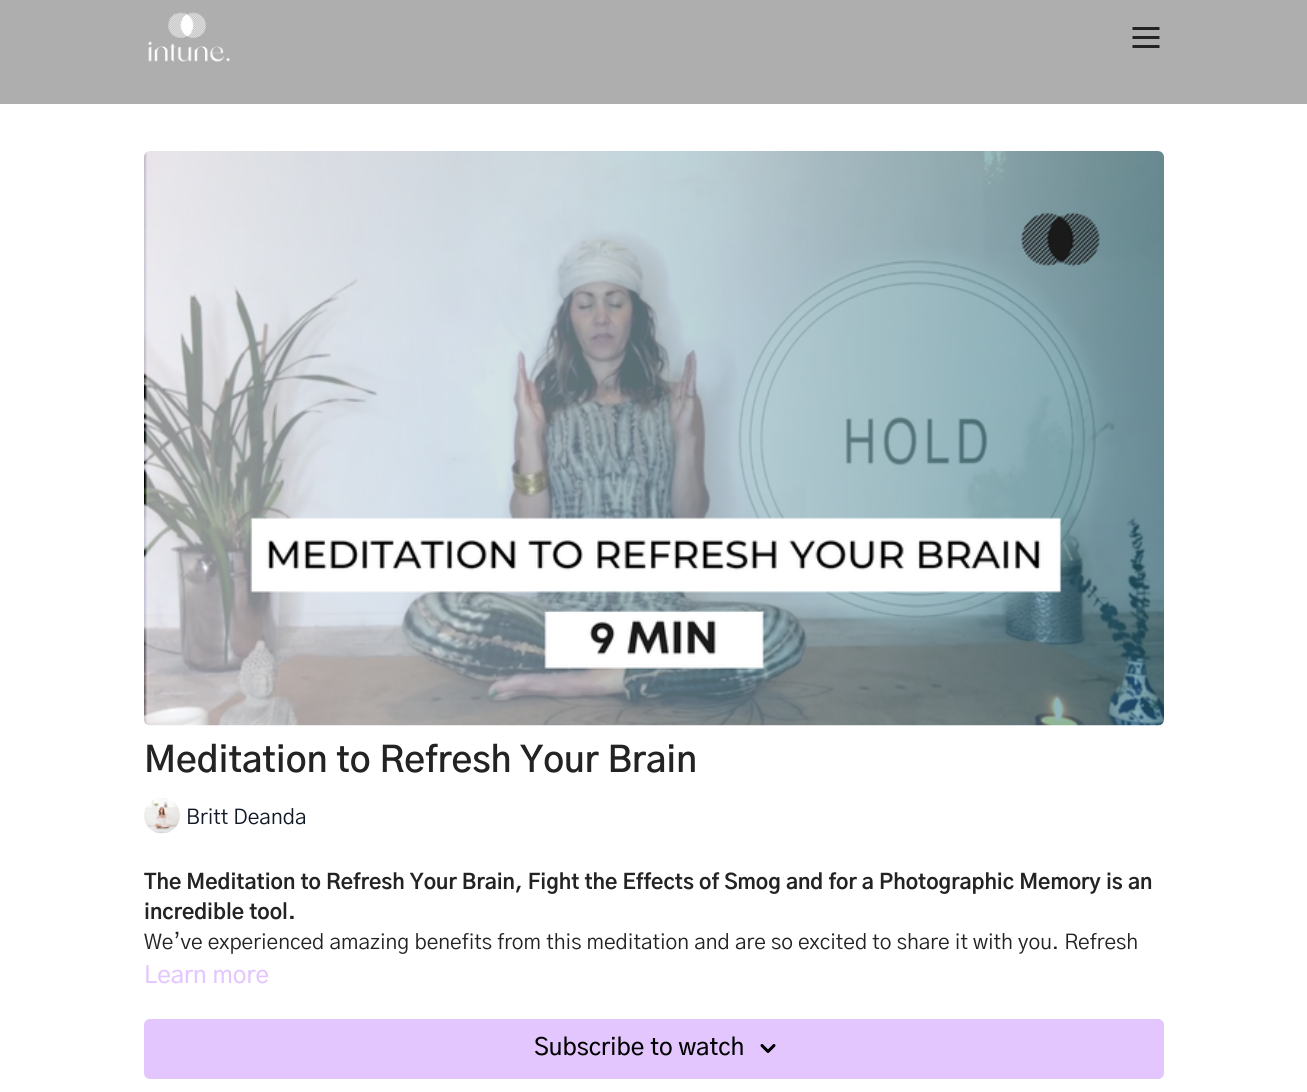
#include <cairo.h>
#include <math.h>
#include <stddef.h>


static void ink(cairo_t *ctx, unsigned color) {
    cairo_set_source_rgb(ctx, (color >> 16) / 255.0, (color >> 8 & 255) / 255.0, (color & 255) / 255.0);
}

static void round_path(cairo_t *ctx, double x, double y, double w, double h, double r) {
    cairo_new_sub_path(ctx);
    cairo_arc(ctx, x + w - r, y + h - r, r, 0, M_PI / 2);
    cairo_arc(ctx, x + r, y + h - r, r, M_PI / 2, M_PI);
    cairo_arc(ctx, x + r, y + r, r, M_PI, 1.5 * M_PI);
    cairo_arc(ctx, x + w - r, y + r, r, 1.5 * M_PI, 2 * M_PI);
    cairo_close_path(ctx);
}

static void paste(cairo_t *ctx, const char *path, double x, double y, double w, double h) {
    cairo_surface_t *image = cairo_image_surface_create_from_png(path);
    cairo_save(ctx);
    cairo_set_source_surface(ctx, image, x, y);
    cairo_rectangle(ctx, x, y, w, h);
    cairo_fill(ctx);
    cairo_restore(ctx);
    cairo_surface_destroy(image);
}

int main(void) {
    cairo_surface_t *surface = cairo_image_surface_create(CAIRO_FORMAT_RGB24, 1307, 1092);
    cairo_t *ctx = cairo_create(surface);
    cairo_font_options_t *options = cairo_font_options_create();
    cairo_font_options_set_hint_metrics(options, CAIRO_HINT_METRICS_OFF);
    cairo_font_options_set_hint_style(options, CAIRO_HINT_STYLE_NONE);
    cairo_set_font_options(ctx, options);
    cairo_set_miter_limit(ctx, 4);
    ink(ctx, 0xFFFFFF);
    cairo_paint(ctx);
    ink(ctx, 0xAEAEAE);
    cairo_rectangle(ctx, 0, 0, 1307, 104);
    cairo_fill(ctx);
    paste(ctx, "media/1.png", 148, 12, 82, 50);
    paste(ctx, "media/2.png", 1132, 27, 28, 21);
    paste(ctx, "media/3.png", 144, 151, 1020, 575);
    cairo_select_font_face(ctx, "Gothic A1 SemiBold", CAIRO_FONT_SLANT_NORMAL, CAIRO_FONT_WEIGHT_NORMAL);
    cairo_set_font_size(ctx, 36);
    ink(ctx, 0x232323);
    cairo_move_to(ctx, 144, 772);
    cairo_show_text(ctx, "Meditation to Refresh Your Brain");
    paste(ctx, "media/4.png", 144, 798, 36, 36);
    cairo_select_font_face(ctx, "Gothic A1", CAIRO_FONT_SLANT_NORMAL, CAIRO_FONT_WEIGHT_NORMAL);
    cairo_set_font_size(ctx, 21);
    ink(ctx, 0x111827);
    cairo_move_to(ctx, 186, 824);
    cairo_show_text(ctx, "Britt Deanda");
    cairo_select_font_face(ctx, "Gothic A1", CAIRO_FONT_SLANT_NORMAL, CAIRO_FONT_WEIGHT_BOLD);
    ink(ctx, 0x232323);
    cairo_move_to(ctx, 144, 889);
    cairo_show_text(ctx, "The Meditation to Refresh Your Brain, Fight the Effects of Smog and for a Photographic Memory is an");
    cairo_move_to(ctx, 144, 919);
    cairo_show_text(ctx, "incredible tool.");
    cairo_select_font_face(ctx, "Gothic A1", CAIRO_FONT_SLANT_NORMAL, CAIRO_FONT_WEIGHT_NORMAL);
    cairo_move_to(ctx, 144, 949);
    cairo_show_text(ctx, "We’ve experienced amazing benefits from this meditation and are so excited to share it with you. Refresh");
    cairo_select_font_face(ctx, "Gothic A1 Medium", CAIRO_FONT_SLANT_NORMAL, CAIRO_FONT_WEIGHT_NORMAL);
    cairo_set_font_size(ctx, 24);
    ink(ctx, 0xE3C6FE);
    cairo_move_to(ctx, 144, 983);
    cairo_show_text(ctx, "Learn more");
    round_path(ctx, 144, 1019, 1020, 60, 6);
    cairo_fill(ctx);
    ink(ctx, 0x000000);
    cairo_move_to(ctx, 534, 1055);
    cairo_show_text(ctx, "Subscribe to watch");
    paste(ctx, "media/5.png", 760, 1044, 16, 9);
    cairo_surface_write_to_png(surface, "image.png");
    cairo_font_options_destroy(options);
    cairo_destroy(ctx);
    cairo_surface_destroy(surface);
    return 0;
}
